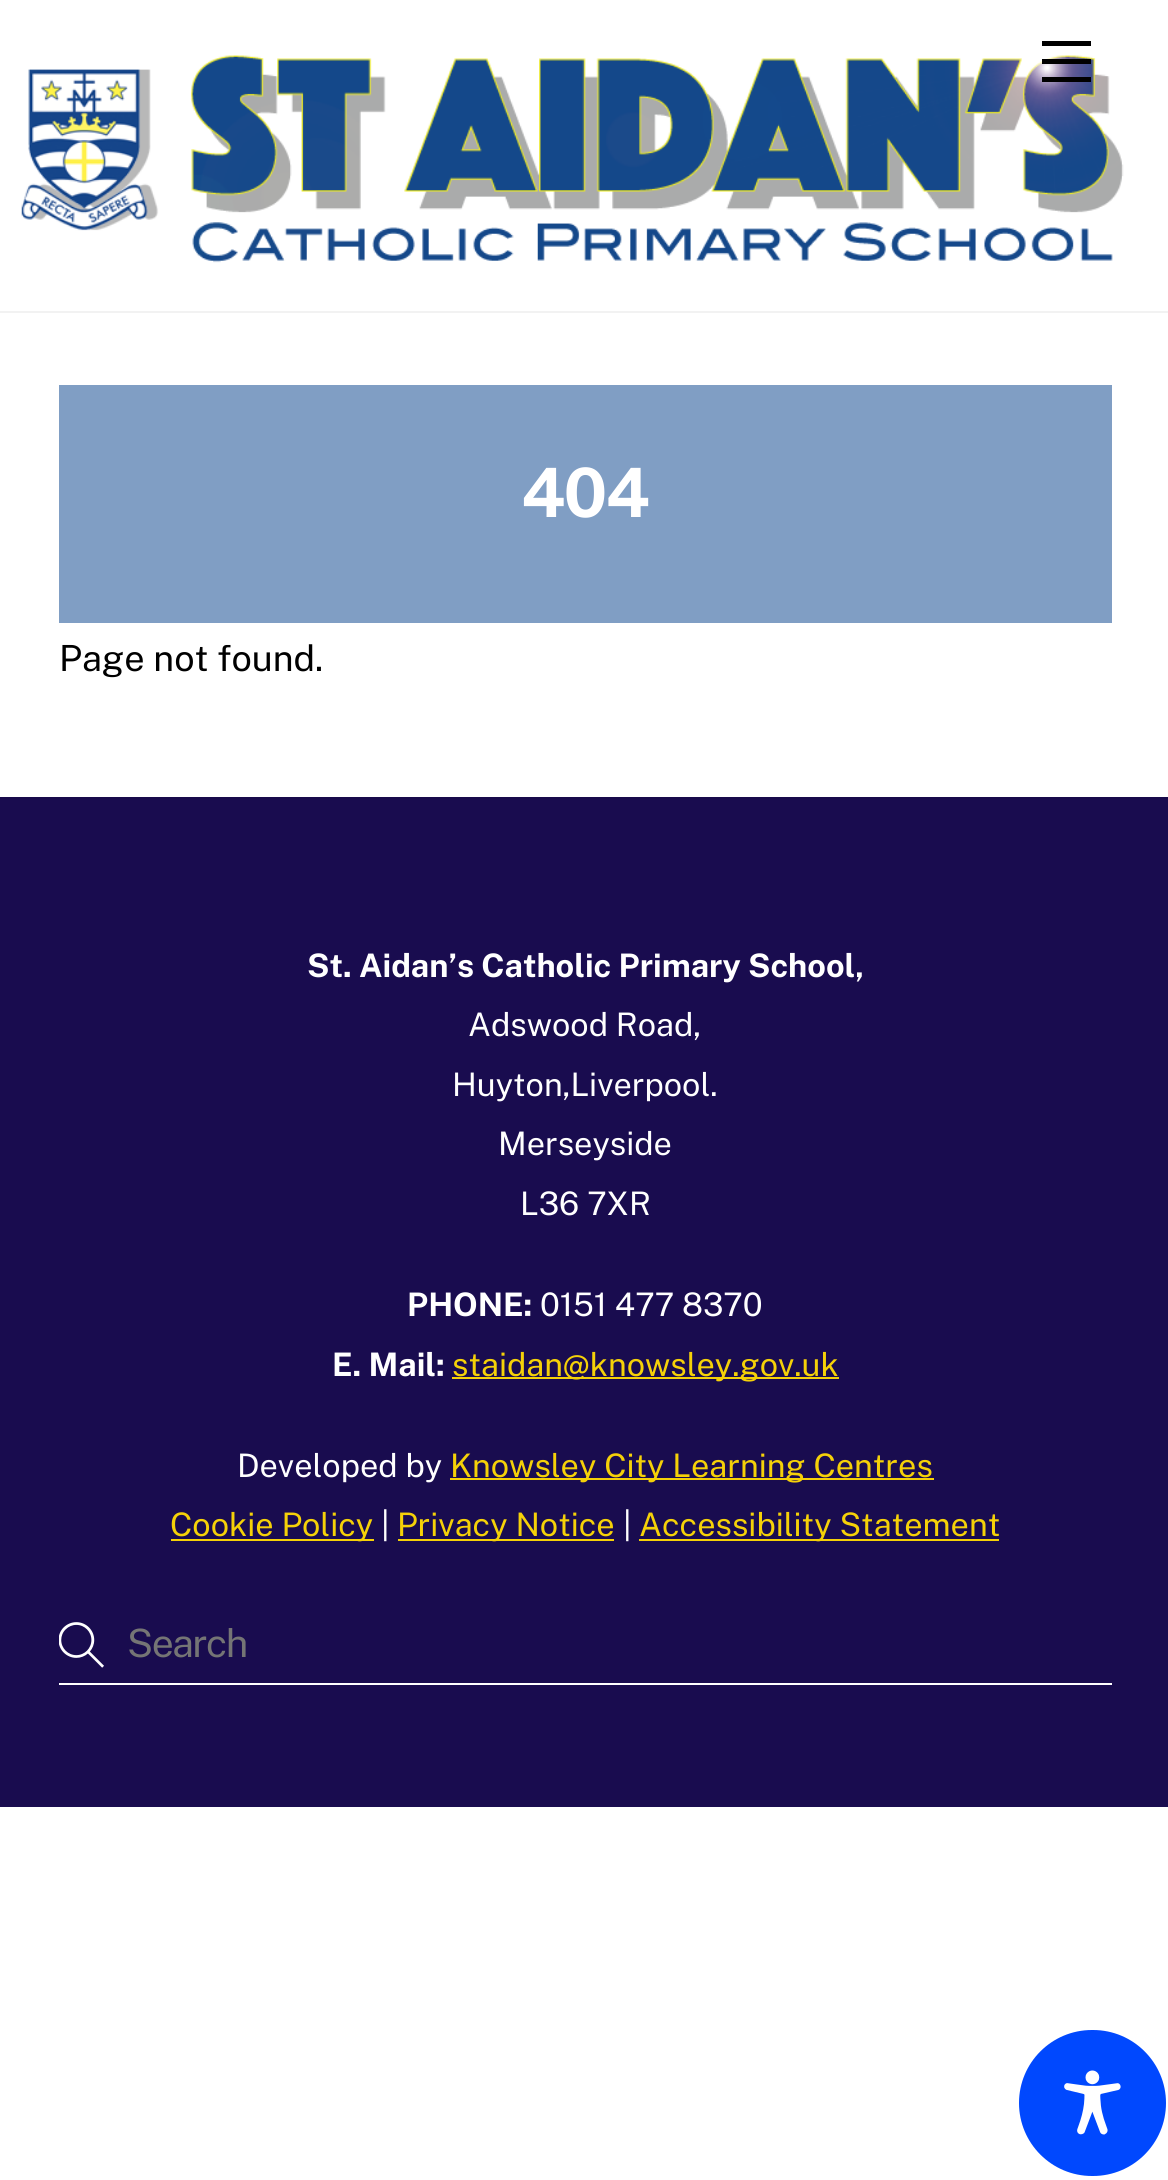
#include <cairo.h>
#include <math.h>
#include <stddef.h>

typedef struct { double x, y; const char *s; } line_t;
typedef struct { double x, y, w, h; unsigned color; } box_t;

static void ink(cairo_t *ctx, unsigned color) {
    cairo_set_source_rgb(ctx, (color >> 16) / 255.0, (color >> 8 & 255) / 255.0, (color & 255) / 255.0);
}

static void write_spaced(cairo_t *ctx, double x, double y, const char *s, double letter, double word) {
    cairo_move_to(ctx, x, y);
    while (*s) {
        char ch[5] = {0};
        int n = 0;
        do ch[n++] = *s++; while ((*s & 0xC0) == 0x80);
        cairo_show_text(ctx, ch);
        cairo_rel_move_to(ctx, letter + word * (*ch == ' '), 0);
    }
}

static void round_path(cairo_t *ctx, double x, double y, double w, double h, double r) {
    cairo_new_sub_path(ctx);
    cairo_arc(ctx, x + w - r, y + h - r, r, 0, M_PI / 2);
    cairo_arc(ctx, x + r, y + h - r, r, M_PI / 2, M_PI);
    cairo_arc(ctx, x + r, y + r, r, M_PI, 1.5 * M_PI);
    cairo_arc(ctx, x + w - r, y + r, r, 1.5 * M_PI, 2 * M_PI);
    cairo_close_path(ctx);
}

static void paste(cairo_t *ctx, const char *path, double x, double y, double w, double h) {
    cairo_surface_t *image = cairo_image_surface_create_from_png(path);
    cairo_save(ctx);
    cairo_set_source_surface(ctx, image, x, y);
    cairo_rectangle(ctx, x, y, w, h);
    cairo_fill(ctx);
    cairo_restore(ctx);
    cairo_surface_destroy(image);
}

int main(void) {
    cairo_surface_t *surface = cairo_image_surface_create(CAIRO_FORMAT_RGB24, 1168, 2180);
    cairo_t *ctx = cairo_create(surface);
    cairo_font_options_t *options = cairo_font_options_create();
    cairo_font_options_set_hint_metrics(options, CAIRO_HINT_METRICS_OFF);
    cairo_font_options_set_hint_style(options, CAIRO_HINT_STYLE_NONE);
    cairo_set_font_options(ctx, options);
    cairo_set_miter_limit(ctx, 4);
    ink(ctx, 0xFFFFFF);
    cairo_paint(ctx);
    ink(ctx, 0xF2F2F2);
    cairo_rectangle(ctx, 0, 311, 1168, 2);
    cairo_fill(ctx);
    paste(ctx, "media/1.png", 21, 55, 1103, 208);
    {
        static const box_t items[] = {
            {1042, 77, 49, 5, 0x000000},
            {1042, 41, 49, 5, 0x000000},
            {1042, 59, 49, 5, 0x000000},
            {59, 385, 1053, 238, 0x809EC4},
        };
        for (size_t i = 0; i < sizeof items / sizeof *items; i++) {
            ink(ctx, items[i].color);
            cairo_rectangle(ctx, items[i].x, items[i].y, items[i].w, items[i].h);
            cairo_fill(ctx);
        }
    }
    cairo_select_font_face(ctx, "Public Sans", CAIRO_FONT_SLANT_NORMAL, CAIRO_FONT_WEIGHT_BOLD);
    cairo_set_font_size(ctx, 68);
    ink(ctx, 0xFFFFFF);
    write_spaced(ctx, 521, 517, "404", -2, 0);
    cairo_select_font_face(ctx, "Public Sans", CAIRO_FONT_SLANT_NORMAL, CAIRO_FONT_WEIGHT_NORMAL);
    cairo_set_font_size(ctx, 36);
    ink(ctx, 0x000000);
    cairo_move_to(ctx, 59, 671);
    cairo_show_text(ctx, "Page not found.");
    ink(ctx, 0x190C4F);
    cairo_rectangle(ctx, 0, 799, 1168, 1008);
    cairo_fill(ctx);
    ink(ctx, 0x180B4B);
    cairo_rectangle(ctx, 0, 797, 1168, 2);
    cairo_fill(ctx);
    cairo_select_font_face(ctx, "Public Sans", CAIRO_FONT_SLANT_NORMAL, CAIRO_FONT_WEIGHT_BOLD);
    cairo_set_font_size(ctx, 32.4);
    ink(ctx, 0xFFFFFF);
    cairo_move_to(ctx, 307, 977);
    cairo_show_text(ctx, "St. Aidan’s Catholic Primary School,");
    cairo_select_font_face(ctx, "Public Sans", CAIRO_FONT_SLANT_NORMAL, CAIRO_FONT_WEIGHT_NORMAL);
    {
        static const line_t items[] = {
            {468, 1036, "Adswood Road,"},
            {452, 1096, "Huyton,Liverpool."},
            {498, 1155, "Merseyside"},
            {520, 1215, "L36 7XR"},
        };
        for (size_t i = 0; i < sizeof items / sizeof *items; i++) {
            cairo_move_to(ctx, items[i].x, items[i].y);
            cairo_show_text(ctx, items[i].s);
        }
    }
    cairo_select_font_face(ctx, "Public Sans", CAIRO_FONT_SLANT_NORMAL, CAIRO_FONT_WEIGHT_BOLD);
    cairo_move_to(ctx, 407, 1316);
    cairo_show_text(ctx, "PHONE:");
    cairo_select_font_face(ctx, "Public Sans", CAIRO_FONT_SLANT_NORMAL, CAIRO_FONT_WEIGHT_NORMAL);
    cairo_move_to(ctx, 540, 1316);
    cairo_show_text(ctx, "0151 477 8370");
    cairo_select_font_face(ctx, "Public Sans", CAIRO_FONT_SLANT_NORMAL, CAIRO_FONT_WEIGHT_BOLD);
    cairo_move_to(ctx, 332, 1376);
    cairo_show_text(ctx, "E. Mail:");
    ink(ctx, 0xF5D108);
    cairo_rectangle(ctx, 452, 1377, 387, 2);
    cairo_fill(ctx);
    cairo_select_font_face(ctx, "Public Sans", CAIRO_FONT_SLANT_NORMAL, CAIRO_FONT_WEIGHT_NORMAL);
    cairo_move_to(ctx, 452, 1376);
    cairo_show_text(ctx, "staidan@knowsley.gov.uk");
    ink(ctx, 0xFFFFFF);
    cairo_move_to(ctx, 237, 1477);
    cairo_show_text(ctx, "Developed by");
    ink(ctx, 0xF5D108);
    cairo_rectangle(ctx, 450, 1478, 484, 2);
    cairo_fill(ctx);
    cairo_move_to(ctx, 450, 1477);
    cairo_show_text(ctx, "Knowsley City Learning Centres");
    cairo_rectangle(ctx, 171, 1539, 203, 2);
    cairo_fill(ctx);
    cairo_move_to(ctx, 170, 1536);
    cairo_show_text(ctx, "Cookie Policy");
    ink(ctx, 0xFFFFFF);
    cairo_move_to(ctx, 381, 1536);
    cairo_show_text(ctx, "|");
    ink(ctx, 0xF5D108);
    cairo_rectangle(ctx, 398, 1539, 216, 2);
    cairo_fill(ctx);
    cairo_move_to(ctx, 397, 1536);
    cairo_show_text(ctx, "Privacy Notice");
    ink(ctx, 0xFFFFFF);
    cairo_move_to(ctx, 623, 1536);
    cairo_show_text(ctx, "|");
    ink(ctx, 0xF5D108);
    cairo_rectangle(ctx, 639, 1539, 360, 2);
    cairo_fill(ctx);
    cairo_move_to(ctx, 639, 1536);
    cairo_show_text(ctx, "Accessibility Statement");
    ink(ctx, 0xFFFFFF);
    cairo_rectangle(ctx, 59, 1683, 1053, 2);
    cairo_fill(ctx);
    paste(ctx, "media/2.png", 59, 1622, 45, 46);
    cairo_set_font_size(ctx, 39);
    ink(ctx, 0x757575);
    write_spaced(ctx, 127, 1657, "Search", -1.5, 0);
    ink(ctx, 0x0048FE);
    round_path(ctx, 1019, 2030, 147, 146, 73);
    cairo_fill(ctx);
    paste(ctx, "media/3.png", 1064, 2070, 57, 65);
    cairo_surface_write_to_png(surface, "image.png");
    cairo_font_options_destroy(options);
    cairo_destroy(ctx);
    cairo_surface_destroy(surface);
    return 0;
}
